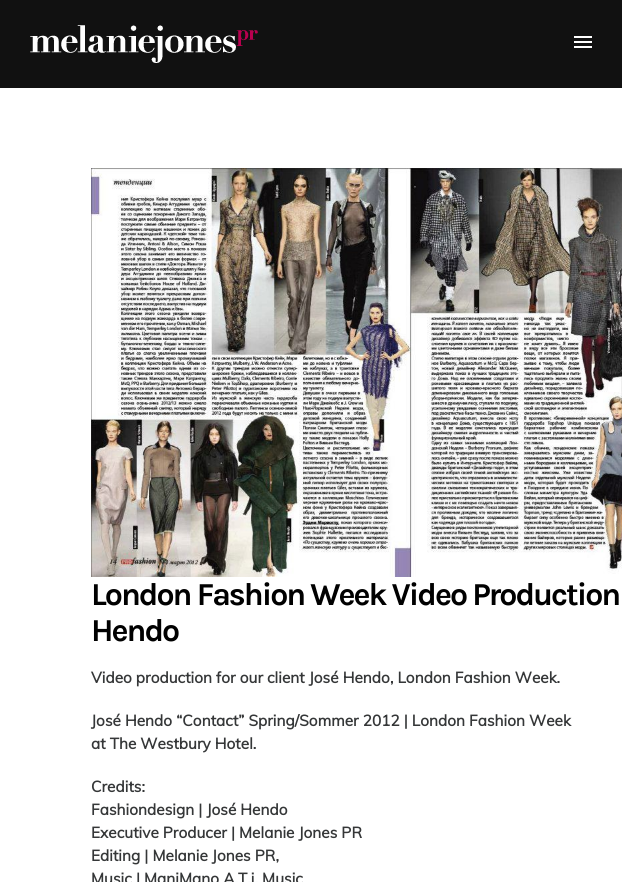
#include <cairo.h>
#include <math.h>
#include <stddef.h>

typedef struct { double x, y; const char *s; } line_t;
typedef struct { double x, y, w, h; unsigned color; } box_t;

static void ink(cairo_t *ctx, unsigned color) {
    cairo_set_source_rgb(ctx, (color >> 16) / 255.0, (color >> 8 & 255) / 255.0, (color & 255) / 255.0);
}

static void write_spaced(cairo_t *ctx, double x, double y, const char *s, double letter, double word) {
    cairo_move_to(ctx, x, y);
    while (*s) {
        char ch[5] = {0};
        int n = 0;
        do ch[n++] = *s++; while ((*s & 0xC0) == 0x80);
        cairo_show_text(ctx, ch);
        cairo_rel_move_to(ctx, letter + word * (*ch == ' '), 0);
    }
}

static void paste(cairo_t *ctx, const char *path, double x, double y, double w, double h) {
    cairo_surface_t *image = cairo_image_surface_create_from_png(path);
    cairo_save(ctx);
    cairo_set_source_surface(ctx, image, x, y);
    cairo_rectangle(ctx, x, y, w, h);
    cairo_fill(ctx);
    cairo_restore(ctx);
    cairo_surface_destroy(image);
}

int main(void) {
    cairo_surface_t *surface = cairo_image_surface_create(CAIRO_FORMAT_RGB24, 622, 882);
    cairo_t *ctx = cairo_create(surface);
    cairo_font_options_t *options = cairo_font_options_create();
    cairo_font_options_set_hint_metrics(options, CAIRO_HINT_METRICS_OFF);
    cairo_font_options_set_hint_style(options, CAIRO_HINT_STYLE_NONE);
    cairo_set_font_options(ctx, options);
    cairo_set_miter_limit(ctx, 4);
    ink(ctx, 0xFFFFFF);
    cairo_paint(ctx);
    ink(ctx, 0x111111);
    cairo_rectangle(ctx, 0, 0, 622, 88);
    cairo_fill(ctx);
    paste(ctx, "media/1.png", 30, 25, 228, 38);
    {
        static const box_t items[] = {
            {574, 41, 18, 2, 0xFFFFFF},
            {574, 36, 18, 2, 0xFFFFFF},
            {574, 46, 18, 2, 0xFFFFFF},
        };
        for (size_t i = 0; i < sizeof items / sizeof *items; i++) {
            ink(ctx, items[i].color);
            cairo_rectangle(ctx, items[i].x, items[i].y, items[i].w, items[i].h);
            cairo_fill(ctx);
        }
    }
    paste(ctx, "media/2.png", 91, 168, 531, 409);
    cairo_select_font_face(ctx, "Karla", CAIRO_FONT_SLANT_NORMAL, CAIRO_FONT_WEIGHT_BOLD);
    cairo_set_font_size(ctx, 32);
    ink(ctx, 0x000000);
    write_spaced(ctx, 91, 605, "London Fashion Week Video Production", -2, 0);
    write_spaced(ctx, 91, 641, "Hendo", -2, 0);
    cairo_select_font_face(ctx, "Muli", CAIRO_FONT_SLANT_NORMAL, CAIRO_FONT_WEIGHT_BOLD);
    cairo_set_font_size(ctx, 15.4);
    ink(ctx, 0x353738);
    {
        static const line_t items[] = {
            {91, 683, "Video production for our client José Hendo, London Fashion Week."},
            {91, 726, "José Hendo “Contact” Spring/Sommer 2012 | London Fashion Week"},
            {91, 749, "at The Westbury Hotel."},
            {91, 792, "Credits:"},
            {91, 815, "Fashiondesign | José Hendo"},
            {91, 838, "Executive Producer | Melanie Jones PR"},
            {91, 861, "Editing | Melanie Jones PR,"},
            {91, 884, "Music | ManiMano A.T.i. Music"},
        };
        for (size_t i = 0; i < sizeof items / sizeof *items; i++) {
            cairo_move_to(ctx, items[i].x, items[i].y);
            cairo_show_text(ctx, items[i].s);
        }
    }
    cairo_surface_write_to_png(surface, "image.png");
    cairo_font_options_destroy(options);
    cairo_destroy(ctx);
    cairo_surface_destroy(surface);
    return 0;
}
